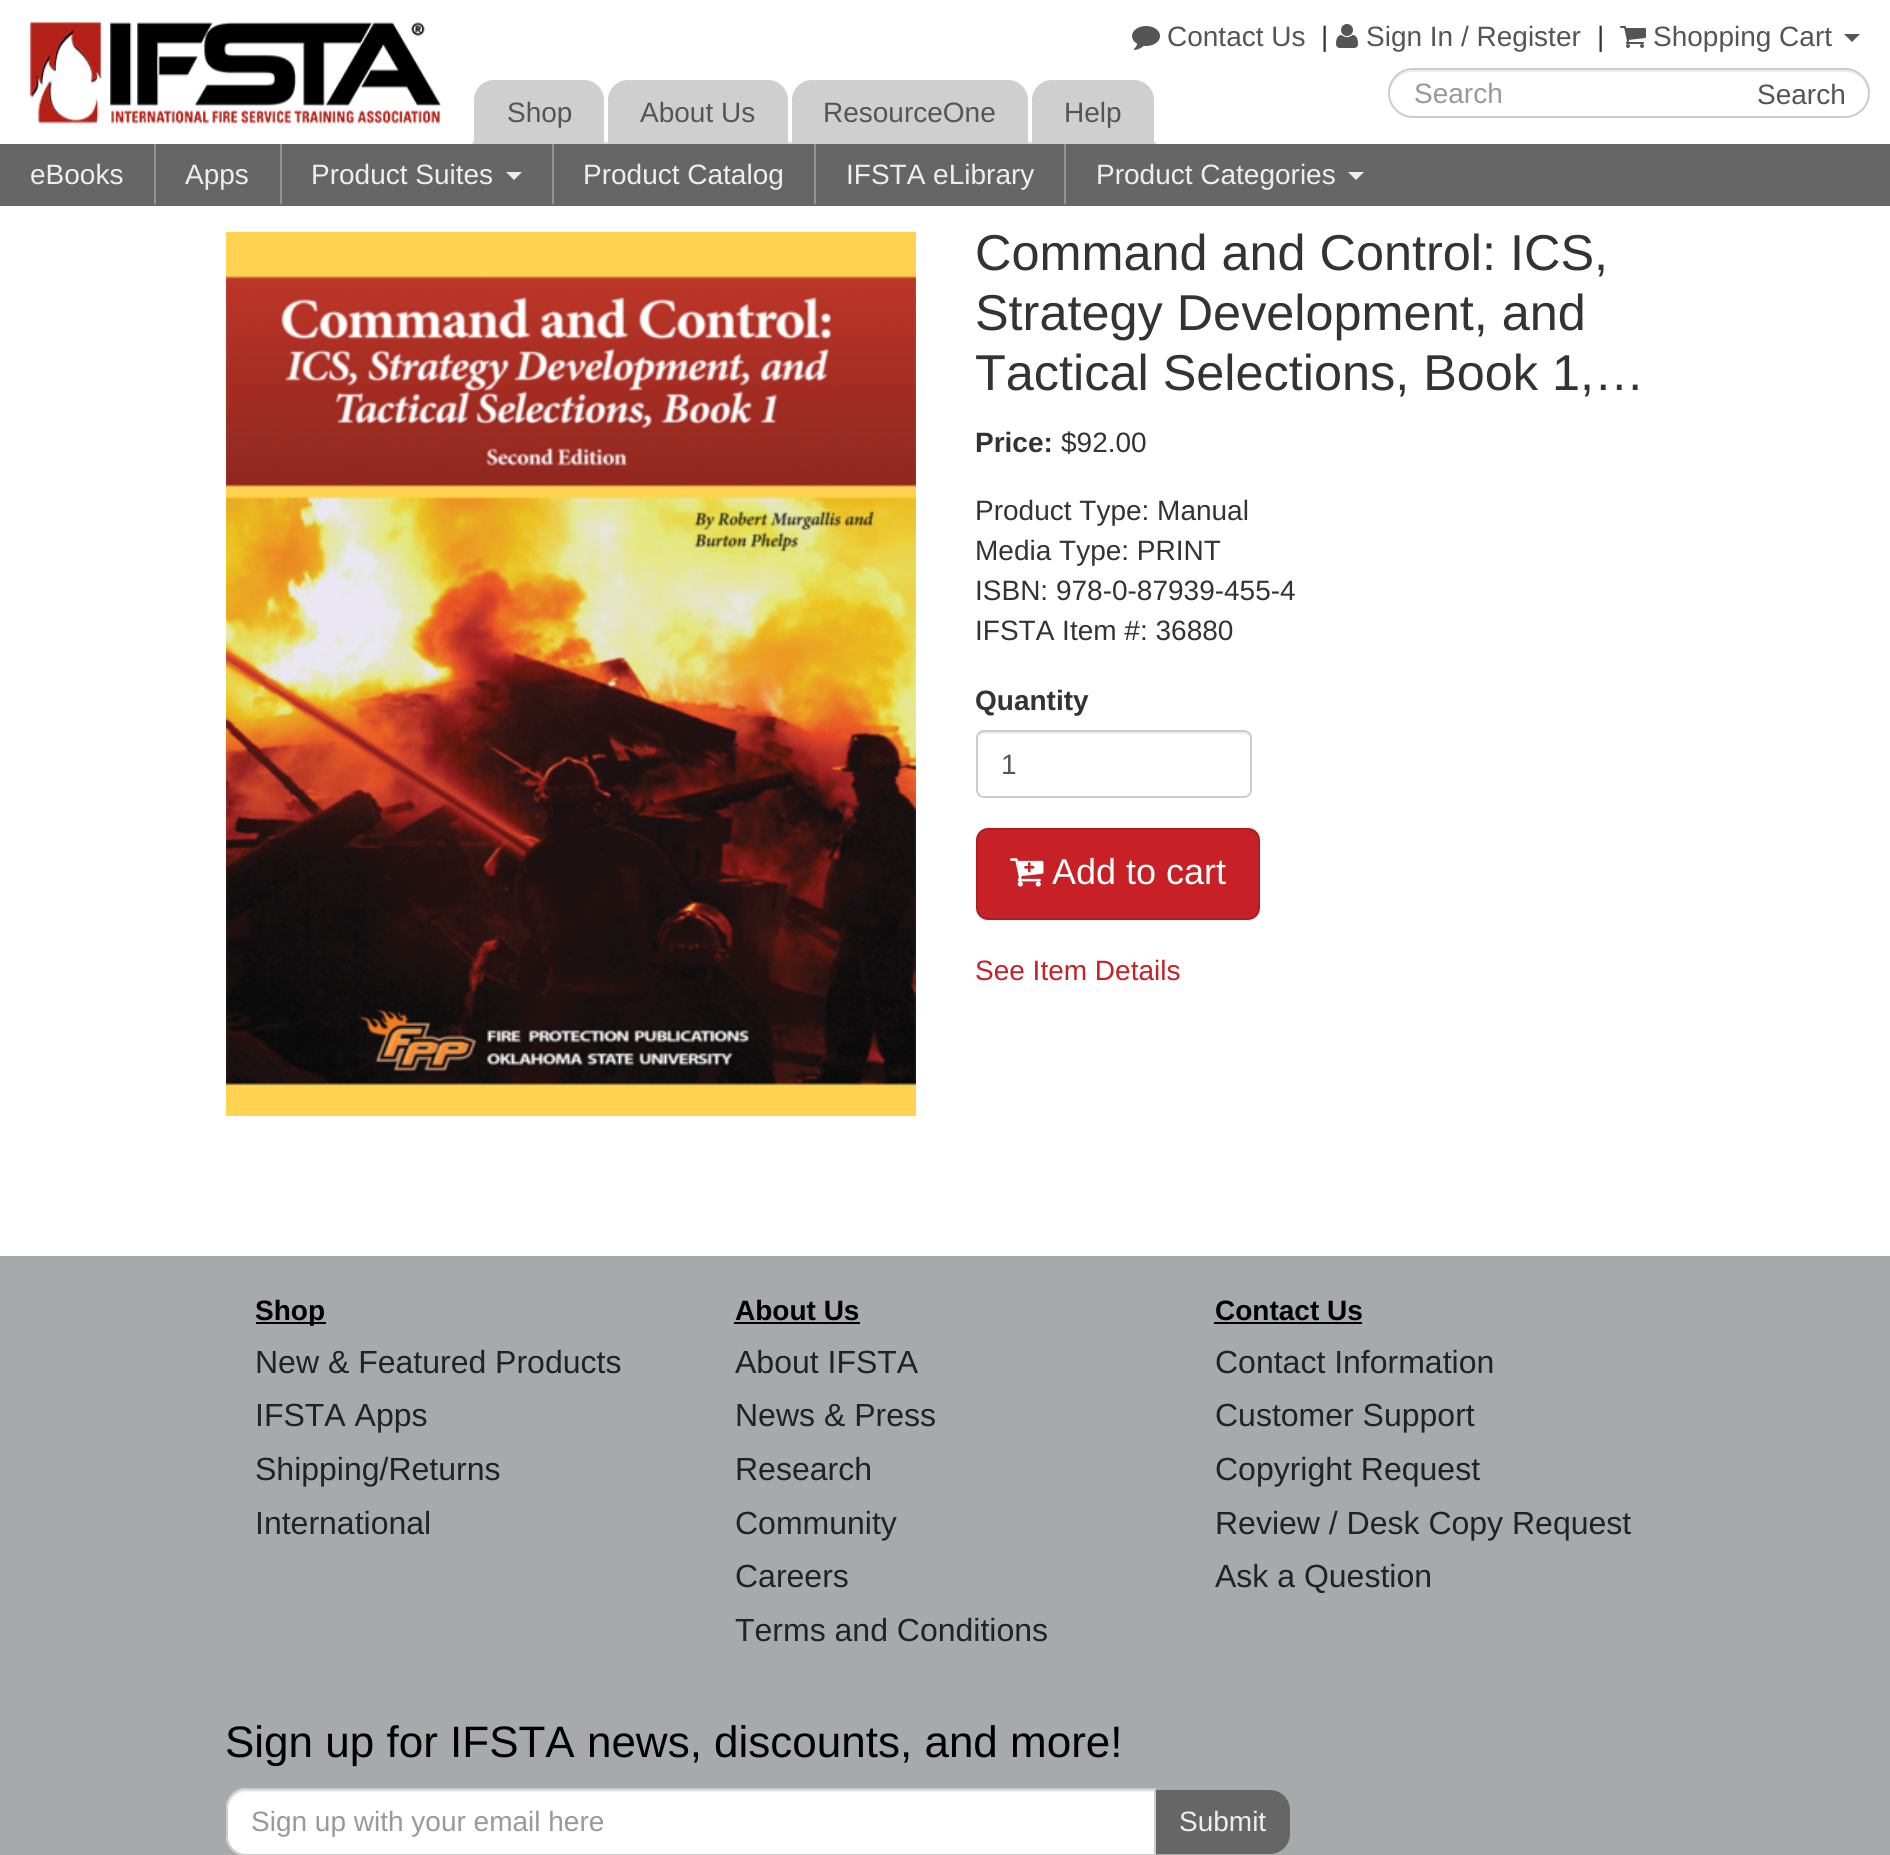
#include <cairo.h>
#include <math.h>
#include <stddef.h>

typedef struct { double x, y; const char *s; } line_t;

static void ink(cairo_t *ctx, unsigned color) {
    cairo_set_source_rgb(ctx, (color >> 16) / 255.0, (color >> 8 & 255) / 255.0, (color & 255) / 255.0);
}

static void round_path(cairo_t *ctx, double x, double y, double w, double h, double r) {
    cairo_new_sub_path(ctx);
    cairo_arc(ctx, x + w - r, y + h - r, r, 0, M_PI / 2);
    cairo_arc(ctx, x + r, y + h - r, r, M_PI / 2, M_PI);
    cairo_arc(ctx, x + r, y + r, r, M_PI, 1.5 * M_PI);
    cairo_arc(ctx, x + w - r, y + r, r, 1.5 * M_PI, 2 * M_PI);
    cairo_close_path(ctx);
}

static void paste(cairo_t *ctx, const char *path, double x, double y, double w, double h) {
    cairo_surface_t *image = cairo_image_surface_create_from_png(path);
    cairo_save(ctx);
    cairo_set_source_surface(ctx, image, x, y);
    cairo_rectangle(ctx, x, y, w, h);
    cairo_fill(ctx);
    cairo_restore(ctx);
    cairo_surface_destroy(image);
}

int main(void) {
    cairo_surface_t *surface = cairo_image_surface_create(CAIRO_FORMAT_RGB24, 1890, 1855);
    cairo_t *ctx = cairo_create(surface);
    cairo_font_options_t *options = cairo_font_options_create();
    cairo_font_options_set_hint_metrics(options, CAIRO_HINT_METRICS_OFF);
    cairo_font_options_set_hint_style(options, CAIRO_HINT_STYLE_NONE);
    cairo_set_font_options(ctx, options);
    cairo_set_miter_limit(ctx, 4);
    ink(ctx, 0xFFFFFF);
    cairo_paint(ctx);
    ink(ctx, 0x666666);
    cairo_rectangle(ctx, 0, 144, 1890, 62);
    cairo_fill(ctx);
    paste(ctx, "media/1.png", 30, 22, 411, 102);
    paste(ctx, "media/2.png", 1132, 26, 28, 24);
    cairo_select_font_face(ctx, "Liberation Sans", CAIRO_FONT_SLANT_NORMAL, CAIRO_FONT_WEIGHT_NORMAL);
    cairo_set_font_size(ctx, 28);
    ink(ctx, 0x555555);
    cairo_move_to(ctx, 1167, 46);
    cairo_show_text(ctx, "Contact Us");
    ink(ctx, 0x333333);
    cairo_move_to(ctx, 1321, 46);
    cairo_show_text(ctx, "|");
    paste(ctx, "media/3.png", 1336, 24, 22, 24);
    ink(ctx, 0x555555);
    cairo_move_to(ctx, 1366, 46);
    cairo_show_text(ctx, "Sign In / Register");
    ink(ctx, 0x333333);
    cairo_move_to(ctx, 1597, 46);
    cairo_show_text(ctx, "|");
    paste(ctx, "media/4.png", 1620, 26, 26, 22);
    ink(ctx, 0x555555);
    cairo_move_to(ctx, 1653, 46);
    cairo_show_text(ctx, "Shopping Cart");
    cairo_new_path(ctx);
    cairo_move_to(ctx, 1844, 34);
    cairo_line_to(ctx, 1860, 34);
    cairo_line_to(ctx, 1852, 42);
    cairo_close_path(ctx);
    cairo_fill(ctx);
    ink(ctx, 0xECECEC);
    cairo_new_path(ctx);
    cairo_move_to(ctx, 1413, 72);
    cairo_line_to(ctx, 1845, 72);
    cairo_curve_to(ctx, 1858, 72, 1867, 81, 1868, 94);
    cairo_curve_to(ctx, 1869, 81, 1858, 70, 1845, 70);
    cairo_line_to(ctx, 1413, 70);
    cairo_curve_to(ctx, 1400, 70, 1389, 81, 1390, 94);
    cairo_curve_to(ctx, 1391, 81, 1400, 72, 1413, 72);
    cairo_close_path(ctx);
    cairo_fill(ctx);
    round_path(ctx, 1389, 69, 480, 48, 24);
    ink(ctx, 0xCCCCCC);
    cairo_stroke(ctx);
    ink(ctx, 0x999999);
    cairo_move_to(ctx, 1414, 103);
    cairo_show_text(ctx, "Search");
    ink(ctx, 0x555555);
    cairo_move_to(ctx, 1757, 104);
    cairo_show_text(ctx, "Search");
    ink(ctx, 0xDDDDDD);
    cairo_rectangle(ctx, 472, 142, 684, 2);
    cairo_fill(ctx);
    ink(ctx, 0xCFCFCF);
    cairo_new_path(ctx);
    cairo_move_to(ctx, 494, 80);
    cairo_line_to(ctx, 584, 80);
    cairo_curve_to(ctx, 595, 80, 604, 89, 604, 100);
    cairo_line_to(ctx, 604, 144);
    cairo_line_to(ctx, 474, 144);
    cairo_line_to(ctx, 474, 100);
    cairo_curve_to(ctx, 474, 89, 483, 80, 494, 80);
    cairo_close_path(ctx);
    cairo_fill(ctx);
    ink(ctx, 0x555555);
    cairo_move_to(ctx, 507, 122);
    cairo_show_text(ctx, "Shop");
    ink(ctx, 0xCFCFCF);
    cairo_new_path(ctx);
    cairo_move_to(ctx, 628, 80);
    cairo_line_to(ctx, 768, 80);
    cairo_curve_to(ctx, 779, 80, 788, 89, 788, 100);
    cairo_line_to(ctx, 788, 144);
    cairo_line_to(ctx, 608, 144);
    cairo_line_to(ctx, 608, 100);
    cairo_curve_to(ctx, 608, 89, 617, 80, 628, 80);
    cairo_close_path(ctx);
    cairo_fill(ctx);
    ink(ctx, 0x555555);
    cairo_move_to(ctx, 640, 122);
    cairo_show_text(ctx, "About Us");
    ink(ctx, 0xCFCFCF);
    cairo_new_path(ctx);
    cairo_move_to(ctx, 812, 80);
    cairo_line_to(ctx, 1008, 80);
    cairo_curve_to(ctx, 1019, 80, 1028, 89, 1028, 100);
    cairo_line_to(ctx, 1028, 144);
    cairo_line_to(ctx, 792, 144);
    cairo_line_to(ctx, 792, 100);
    cairo_curve_to(ctx, 792, 89, 801, 80, 812, 80);
    cairo_close_path(ctx);
    cairo_fill(ctx);
    ink(ctx, 0x555555);
    cairo_move_to(ctx, 823, 122);
    cairo_show_text(ctx, "ResourceOne");
    ink(ctx, 0xCFCFCF);
    cairo_new_path(ctx);
    cairo_move_to(ctx, 1052, 80);
    cairo_line_to(ctx, 1134, 80);
    cairo_curve_to(ctx, 1145, 80, 1154, 89, 1154, 100);
    cairo_line_to(ctx, 1154, 144);
    cairo_line_to(ctx, 1032, 144);
    cairo_line_to(ctx, 1032, 100);
    cairo_curve_to(ctx, 1032, 89, 1041, 80, 1052, 80);
    cairo_close_path(ctx);
    cairo_fill(ctx);
    ink(ctx, 0x555555);
    cairo_move_to(ctx, 1064, 122);
    cairo_show_text(ctx, "Help");
    ink(ctx, 0xEEEEEE);
    cairo_move_to(ctx, 30, 184);
    cairo_show_text(ctx, "eBooks");
    ink(ctx, 0x949494);
    cairo_rectangle(ctx, 154, 144, 2, 60);
    cairo_fill(ctx);
    ink(ctx, 0xEEEEEE);
    cairo_move_to(ctx, 185, 184);
    cairo_show_text(ctx, "Apps");
    ink(ctx, 0x949494);
    cairo_rectangle(ctx, 280, 144, 2, 60);
    cairo_fill(ctx);
    ink(ctx, 0xEEEEEE);
    cairo_move_to(ctx, 311, 184);
    cairo_show_text(ctx, "Product Suites");
    cairo_new_path(ctx);
    cairo_move_to(ctx, 506, 172);
    cairo_line_to(ctx, 522, 172);
    cairo_line_to(ctx, 514, 180);
    cairo_close_path(ctx);
    cairo_fill(ctx);
    ink(ctx, 0x949494);
    cairo_rectangle(ctx, 552, 144, 2, 60);
    cairo_fill(ctx);
    ink(ctx, 0xEEEEEE);
    cairo_move_to(ctx, 583, 184);
    cairo_show_text(ctx, "Product Catalog");
    ink(ctx, 0x949494);
    cairo_rectangle(ctx, 814, 144, 2, 60);
    cairo_fill(ctx);
    ink(ctx, 0xEEEEEE);
    cairo_move_to(ctx, 846, 184);
    cairo_show_text(ctx, "IFSTA eLibrary");
    ink(ctx, 0x949494);
    cairo_rectangle(ctx, 1064, 144, 2, 60);
    cairo_fill(ctx);
    ink(ctx, 0xEEEEEE);
    cairo_move_to(ctx, 1096, 184);
    cairo_show_text(ctx, "Product Categories");
    cairo_new_path(ctx);
    cairo_move_to(ctx, 1348, 172);
    cairo_line_to(ctx, 1364, 172);
    cairo_line_to(ctx, 1356, 180);
    cairo_close_path(ctx);
    cairo_fill(ctx);
    paste(ctx, "media/5.png", 226, 232, 690, 884);
    cairo_set_font_size(ctx, 50.4);
    ink(ctx, 0x333333);
    {
        static const line_t items[] = {
            {975, 270, "Command and Control: ICS,"},
            {975, 330, "Strategy Development, and"},
            {975, 390, "Tactical Selections, Book 1,…"},
        };
        for (size_t i = 0; i < sizeof items / sizeof *items; i++) {
            cairo_move_to(ctx, items[i].x, items[i].y);
            cairo_show_text(ctx, items[i].s);
        }
    }
    cairo_select_font_face(ctx, "Liberation Sans", CAIRO_FONT_SLANT_NORMAL, CAIRO_FONT_WEIGHT_BOLD);
    cairo_set_font_size(ctx, 28);
    cairo_move_to(ctx, 975, 452);
    cairo_show_text(ctx, "Price:");
    cairo_select_font_face(ctx, "Liberation Sans", CAIRO_FONT_SLANT_NORMAL, CAIRO_FONT_WEIGHT_NORMAL);
    {
        static const line_t items[] = {
            {1061, 452, "$92.00"},
            {975, 520, "Product Type: Manual"},
            {975, 560, "Media Type: PRINT"},
            {975, 600, "ISBN: 978-0-87939-455-4"},
            {975, 640, "IFSTA Item #: 36880"},
        };
        for (size_t i = 0; i < sizeof items / sizeof *items; i++) {
            cairo_move_to(ctx, items[i].x, items[i].y);
            cairo_show_text(ctx, items[i].s);
        }
    }
    cairo_select_font_face(ctx, "Liberation Sans", CAIRO_FONT_SLANT_NORMAL, CAIRO_FONT_WEIGHT_BOLD);
    cairo_move_to(ctx, 975, 710);
    cairo_show_text(ctx, "Quantity");
    ink(ctx, 0xECECEC);
    cairo_new_path(ctx);
    cairo_move_to(ctx, 984, 734);
    cairo_line_to(ctx, 1244, 734);
    cairo_curve_to(ctx, 1247, 734, 1250, 737, 1250, 740);
    cairo_curve_to(ctx, 1250, 737, 1249, 733, 1245, 732);
    cairo_line_to(ctx, 983, 732);
    cairo_curve_to(ctx, 979, 733, 978, 737, 978, 740);
    cairo_curve_to(ctx, 978, 737, 981, 734, 984, 734);
    cairo_close_path(ctx);
    cairo_fill(ctx);
    round_path(ctx, 977, 731, 274, 66, 7);
    ink(ctx, 0xCCCCCC);
    cairo_stroke(ctx);
    cairo_select_font_face(ctx, "Liberation Sans", CAIRO_FONT_SLANT_NORMAL, CAIRO_FONT_WEIGHT_NORMAL);
    ink(ctx, 0x555555);
    cairo_move_to(ctx, 1001, 774);
    cairo_show_text(ctx, "1");
    ink(ctx, 0xC72026);
    round_path(ctx, 977, 829, 282, 90, 11);
    cairo_fill_preserve(ctx);
    ink(ctx, 0xB11C22);
    cairo_stroke(ctx);
    paste(ctx, "media/6.png", 1010, 858, 34, 29);
    cairo_set_font_size(ctx, 36);
    ink(ctx, 0xFFFFFF);
    cairo_move_to(ctx, 1052, 884);
    cairo_show_text(ctx, "Add to cart");
    cairo_set_font_size(ctx, 28);
    ink(ctx, 0xC72026);
    cairo_move_to(ctx, 975, 980);
    cairo_show_text(ctx, "See Item Details");
    ink(ctx, 0xA7A9AC);
    cairo_rectangle(ctx, 0, 1256, 1890, 599);
    cairo_fill(ctx);
    ink(ctx, 0x000000);
    cairo_rectangle(ctx, 256, 1322, 70, 2);
    cairo_fill(ctx);
    cairo_select_font_face(ctx, "Liberation Sans", CAIRO_FONT_SLANT_NORMAL, CAIRO_FONT_WEIGHT_BOLD);
    cairo_move_to(ctx, 255, 1320);
    cairo_show_text(ctx, "Shop");
    cairo_select_font_face(ctx, "Liberation Sans", CAIRO_FONT_SLANT_NORMAL, CAIRO_FONT_WEIGHT_NORMAL);
    cairo_set_font_size(ctx, 32);
    ink(ctx, 0x222222);
    {
        static const line_t items[] = {
            {255, 1373, "New & Featured Products"},
            {255, 1426, "IFSTA Apps"},
            {255, 1480, "Shipping/Returns"},
            {255, 1534, "International"},
        };
        for (size_t i = 0; i < sizeof items / sizeof *items; i++) {
            cairo_move_to(ctx, items[i].x, items[i].y);
            cairo_show_text(ctx, items[i].s);
        }
    }
    cairo_select_font_face(ctx, "Liberation Sans", CAIRO_FONT_SLANT_NORMAL, CAIRO_FONT_WEIGHT_BOLD);
    cairo_set_font_size(ctx, 28);
    ink(ctx, 0x000000);
    cairo_move_to(ctx, 735, 1320);
    cairo_show_text(ctx, "About Us");
    cairo_rectangle(ctx, 734, 1322, 126, 2);
    cairo_fill(ctx);
    cairo_select_font_face(ctx, "Liberation Sans", CAIRO_FONT_SLANT_NORMAL, CAIRO_FONT_WEIGHT_NORMAL);
    cairo_set_font_size(ctx, 32);
    ink(ctx, 0x222222);
    {
        static const line_t items[] = {
            {735, 1373, "About IFSTA"},
            {735, 1426, "News & Press"},
            {735, 1480, "Research"},
            {735, 1534, "Community"},
            {735, 1587, "Careers"},
            {735, 1641, "Terms and Conditions"},
        };
        for (size_t i = 0; i < sizeof items / sizeof *items; i++) {
            cairo_move_to(ctx, items[i].x, items[i].y);
            cairo_show_text(ctx, items[i].s);
        }
    }
    cairo_select_font_face(ctx, "Liberation Sans", CAIRO_FONT_SLANT_NORMAL, CAIRO_FONT_WEIGHT_BOLD);
    cairo_set_font_size(ctx, 28);
    ink(ctx, 0x000000);
    cairo_move_to(ctx, 1215, 1320);
    cairo_show_text(ctx, "Contact Us");
    cairo_rectangle(ctx, 1214, 1322, 148, 2);
    cairo_fill(ctx);
    cairo_select_font_face(ctx, "Liberation Sans", CAIRO_FONT_SLANT_NORMAL, CAIRO_FONT_WEIGHT_NORMAL);
    cairo_set_font_size(ctx, 32);
    ink(ctx, 0x222222);
    {
        static const line_t items[] = {
            {1215, 1373, "Contact Information"},
            {1215, 1426, "Customer Support"},
            {1215, 1480, "Copyright Request"},
            {1215, 1534, "Review / Desk Copy Request"},
            {1215, 1587, "Ask a Question"},
        };
        for (size_t i = 0; i < sizeof items / sizeof *items; i++) {
            cairo_move_to(ctx, items[i].x, items[i].y);
            cairo_show_text(ctx, items[i].s);
        }
    }
    cairo_set_font_size(ctx, 44);
    ink(ctx, 0x000000);
    cairo_move_to(ctx, 225, 1757);
    cairo_show_text(ctx, "Sign up for IFSTA news, discounts, and more!");
    ink(ctx, 0x666666);
    cairo_new_path(ctx);
    cairo_move_to(ctx, 1154, 1790);
    cairo_line_to(ctx, 1270, 1790);
    cairo_curve_to(ctx, 1281, 1790, 1290, 1799, 1290, 1810);
    cairo_line_to(ctx, 1290, 1834);
    cairo_curve_to(ctx, 1290, 1845, 1281, 1854, 1270, 1854);
    cairo_line_to(ctx, 1154, 1854);
    cairo_close_path(ctx);
    cairo_fill(ctx);
    ink(ctx, 0xFFFFFF);
    cairo_new_path(ctx);
    cairo_move_to(ctx, 246, 1788);
    cairo_line_to(ctx, 1156, 1788);
    cairo_line_to(ctx, 1156, 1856);
    cairo_line_to(ctx, 246, 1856);
    cairo_curve_to(ctx, 235, 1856, 226, 1847, 226, 1836);
    cairo_line_to(ctx, 226, 1808);
    cairo_curve_to(ctx, 226, 1797, 235, 1788, 246, 1788);
    cairo_close_path(ctx);
    cairo_fill(ctx);
    ink(ctx, 0xECECEC);
    cairo_new_path(ctx);
    cairo_move_to(ctx, 246, 1792);
    cairo_line_to(ctx, 1154, 1792);
    cairo_line_to(ctx, 1154, 1790);
    cairo_line_to(ctx, 246, 1790);
    cairo_curve_to(ctx, 234, 1790, 228, 1799, 228, 1810);
    cairo_curve_to(ctx, 228, 1800, 236, 1792, 246, 1792);
    cairo_close_path(ctx);
    cairo_fill(ctx);
    cairo_new_path(ctx);
    cairo_move_to(ctx, 246, 1789);
    cairo_line_to(ctx, 1155, 1789);
    cairo_line_to(ctx, 1155, 1855);
    cairo_line_to(ctx, 246, 1855);
    cairo_curve_to(ctx, 235.5, 1855, 227, 1846.5, 227, 1836);
    cairo_line_to(ctx, 227, 1808);
    cairo_curve_to(ctx, 227, 1797.5, 235.5, 1789, 246, 1789);
    cairo_close_path(ctx);
    ink(ctx, 0xCCCCCC);
    cairo_stroke(ctx);
    cairo_set_font_size(ctx, 28);
    ink(ctx, 0x999999);
    cairo_move_to(ctx, 251, 1831);
    cairo_show_text(ctx, "Sign up with your email here");
    ink(ctx, 0xEEEEEE);
    cairo_move_to(ctx, 1179, 1831);
    cairo_show_text(ctx, "Submit");
    cairo_surface_write_to_png(surface, "image.png");
    cairo_font_options_destroy(options);
    cairo_destroy(ctx);
    cairo_surface_destroy(surface);
    return 0;
}
